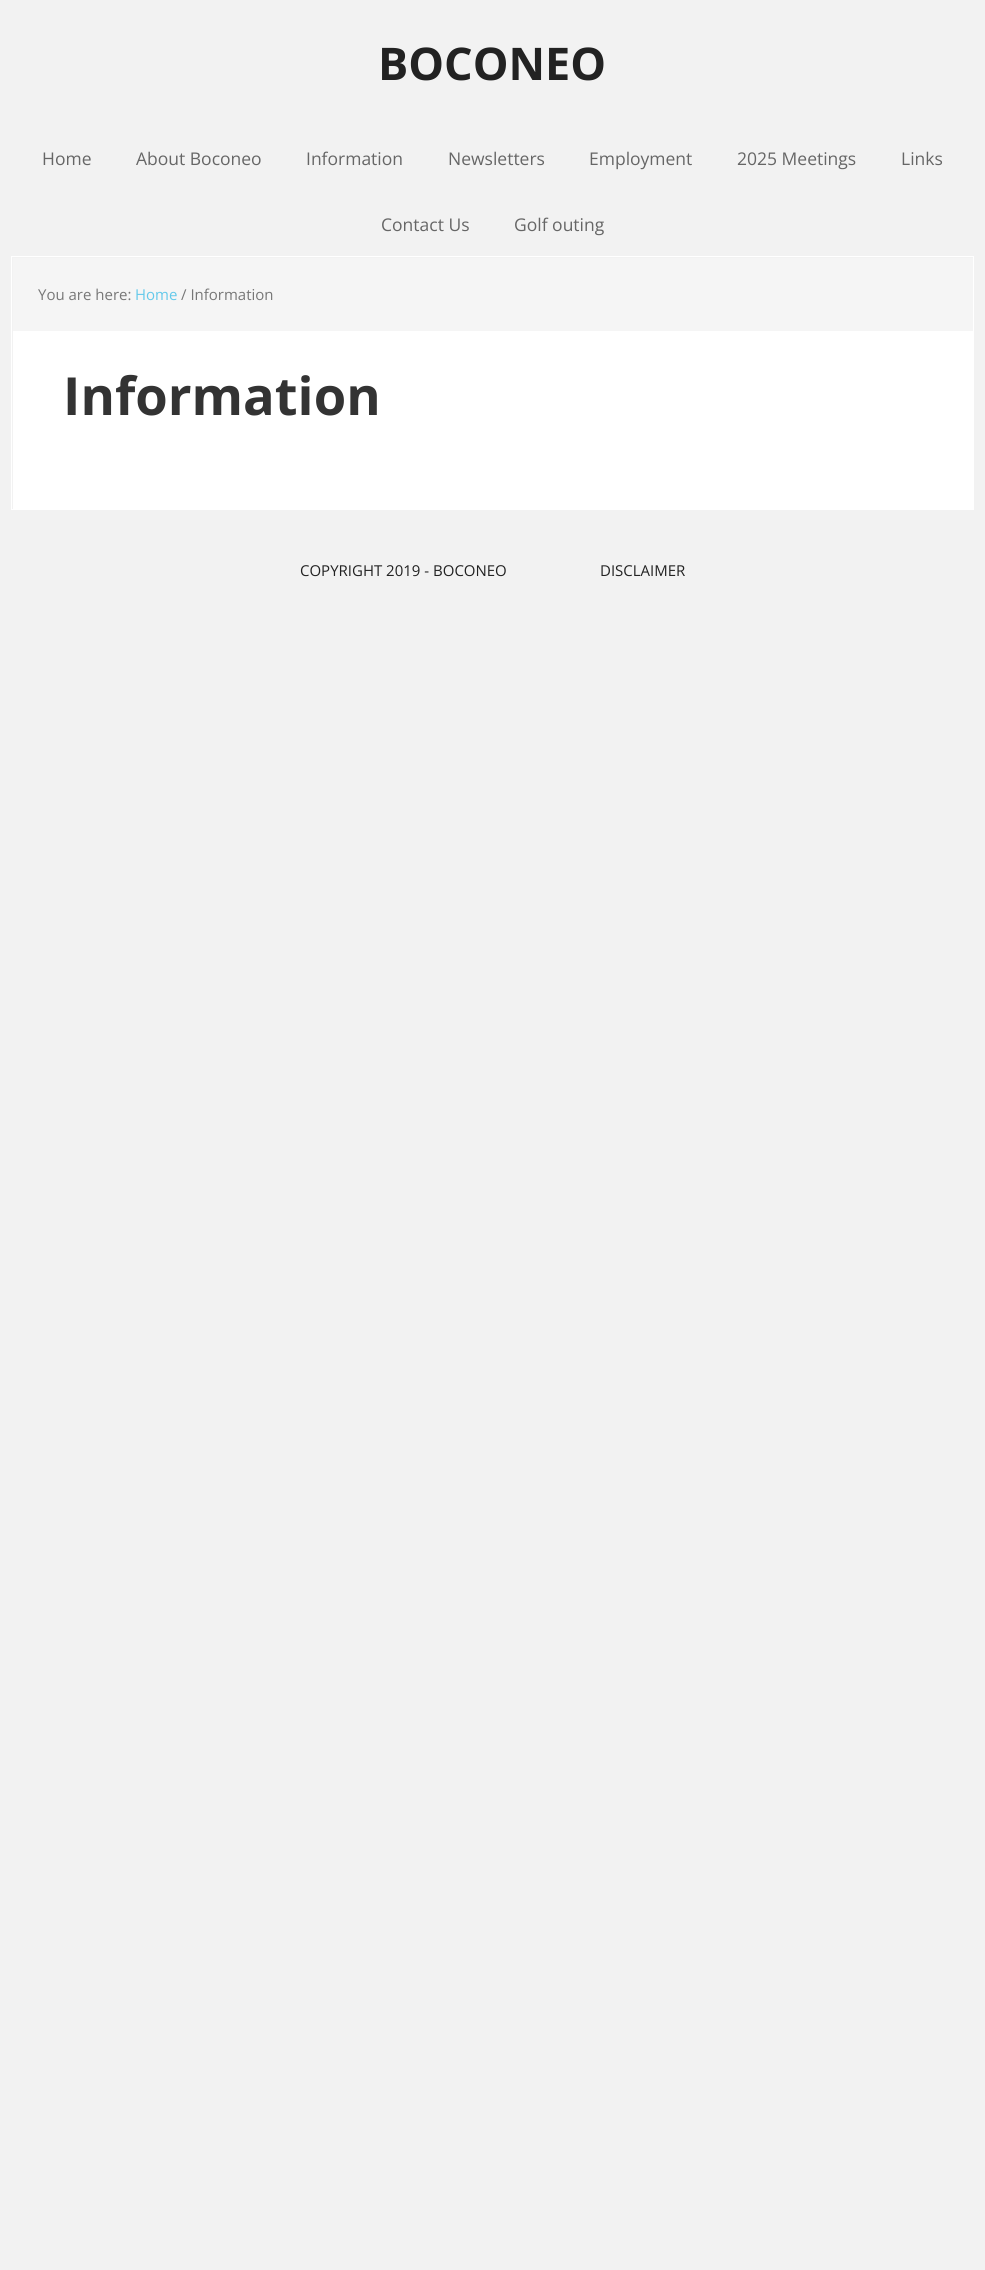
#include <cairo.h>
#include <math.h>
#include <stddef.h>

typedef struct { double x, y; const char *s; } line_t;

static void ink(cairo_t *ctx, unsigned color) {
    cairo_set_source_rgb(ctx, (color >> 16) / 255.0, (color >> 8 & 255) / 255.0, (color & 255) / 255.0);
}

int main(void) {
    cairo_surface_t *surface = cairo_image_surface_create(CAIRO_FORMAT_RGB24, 985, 2270);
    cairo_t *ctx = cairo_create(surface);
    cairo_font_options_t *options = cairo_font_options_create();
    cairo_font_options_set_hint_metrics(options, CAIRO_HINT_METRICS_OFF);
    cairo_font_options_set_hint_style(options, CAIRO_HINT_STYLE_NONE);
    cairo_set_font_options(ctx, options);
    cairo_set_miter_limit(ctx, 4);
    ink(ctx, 0xF2F2F2);
    cairo_paint(ctx);
    cairo_select_font_face(ctx, "Open Sans", CAIRO_FONT_SLANT_NORMAL, CAIRO_FONT_WEIGHT_BOLD);
    cairo_set_font_size(ctx, 45);
    ink(ctx, 0x222222);
    cairo_move_to(ctx, 378, 80);
    cairo_show_text(ctx, "BOCONEO");
    cairo_select_font_face(ctx, "Open Sans", CAIRO_FONT_SLANT_NORMAL, CAIRO_FONT_WEIGHT_NORMAL);
    cairo_set_font_size(ctx, 17.5);
    ink(ctx, 0x666666);
    {
        static const line_t items[] = {
            {42, 165, "Home"},
            {136, 165, "About Boconeo"},
            {306, 165, "Information"},
            {448, 165, "Newsletters"},
            {589, 165, "Employment"},
            {737, 165, "2025 Meetings"},
            {901, 165, "Links"},
            {381, 231, "Contact Us"},
            {514, 231, "Golf outing"},
        };
        for (size_t i = 0; i < sizeof items / sizeof *items; i++) {
            cairo_move_to(ctx, items[i].x, items[i].y);
            cairo_show_text(ctx, items[i].s);
        }
    }
    cairo_rectangle(ctx, 11.5, 256.5, 962, 253);
    ink(ctx, 0xFFFFFF);
    cairo_set_line_width(ctx, 1);
    cairo_stroke(ctx);
    cairo_rectangle(ctx, 13, 331, 960, 178);
    cairo_fill(ctx);
    ink(ctx, 0xF5F5F5);
    cairo_rectangle(ctx, 13, 258, 960, 73);
    cairo_fill(ctx);
    cairo_set_font_size(ctx, 15);
    ink(ctx, 0x777777);
    cairo_move_to(ctx, 38, 300);
    cairo_show_text(ctx, "You are here:");
    ink(ctx, 0x64C9EA);
    cairo_move_to(ctx, 135, 300);
    cairo_show_text(ctx, "Home");
    ink(ctx, 0x777777);
    cairo_move_to(ctx, 181, 300);
    cairo_show_text(ctx, "/ Information");
    cairo_select_font_face(ctx, "Open Sans", CAIRO_FONT_SLANT_NORMAL, CAIRO_FONT_WEIGHT_BOLD);
    cairo_set_font_size(ctx, 52.5);
    ink(ctx, 0x333333);
    cairo_move_to(ctx, 63, 415);
    cairo_show_text(ctx, "Information");
    cairo_select_font_face(ctx, "Open Sans", CAIRO_FONT_SLANT_NORMAL, CAIRO_FONT_WEIGHT_NORMAL);
    cairo_set_font_size(ctx, 15);
    ink(ctx, 0x222222);
    cairo_move_to(ctx, 300, 576);
    cairo_show_text(ctx, "COPYRIGHT 2019 - BOCONEO");
    cairo_move_to(ctx, 600, 576);
    cairo_show_text(ctx, "DISCLAIMER");
    cairo_surface_write_to_png(surface, "image.png");
    cairo_font_options_destroy(options);
    cairo_destroy(ctx);
    cairo_surface_destroy(surface);
    return 0;
}
